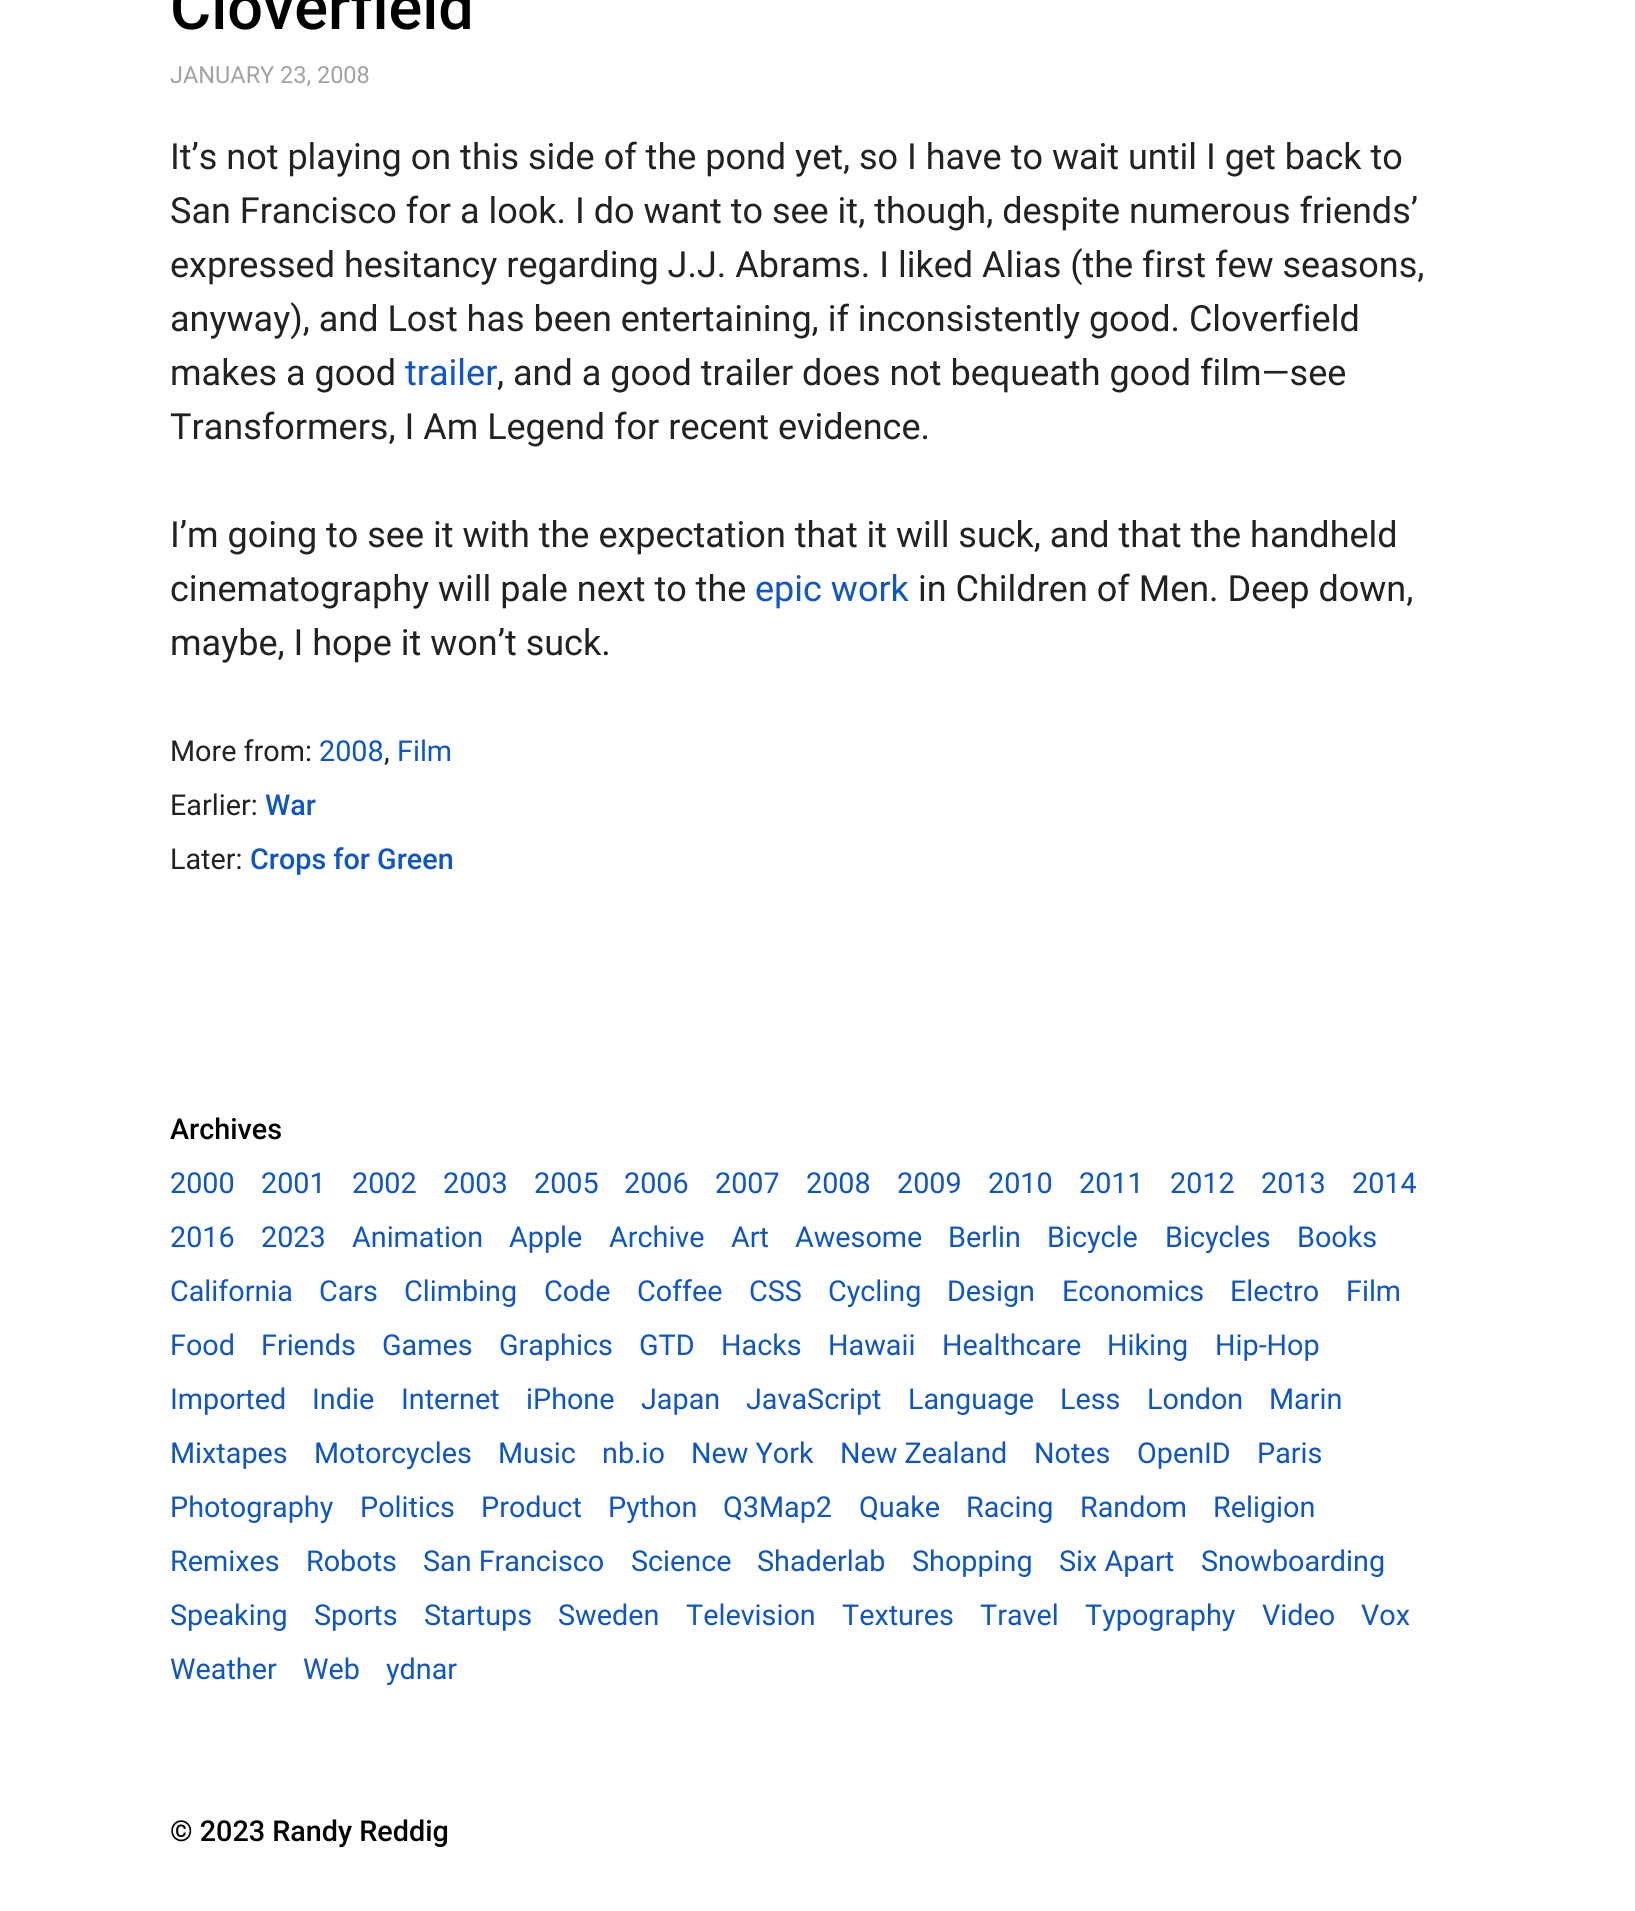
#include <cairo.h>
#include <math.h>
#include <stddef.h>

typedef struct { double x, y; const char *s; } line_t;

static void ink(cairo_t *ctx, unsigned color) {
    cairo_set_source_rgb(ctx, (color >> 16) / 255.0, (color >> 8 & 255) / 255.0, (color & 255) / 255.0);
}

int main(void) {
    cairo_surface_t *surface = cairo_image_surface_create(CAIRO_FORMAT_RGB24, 1635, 1911);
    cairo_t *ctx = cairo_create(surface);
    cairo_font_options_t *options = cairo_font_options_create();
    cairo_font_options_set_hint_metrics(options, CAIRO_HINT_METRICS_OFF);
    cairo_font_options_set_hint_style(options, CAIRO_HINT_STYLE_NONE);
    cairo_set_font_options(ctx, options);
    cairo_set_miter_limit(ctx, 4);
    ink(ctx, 0xFFFFFF);
    cairo_paint(ctx);
    cairo_select_font_face(ctx, "Roboto Medium", CAIRO_FONT_SLANT_NORMAL, CAIRO_FONT_WEIGHT_NORMAL);
    cairo_set_font_size(ctx, 63);
    ink(ctx, 0x000000);
    cairo_move_to(ctx, 170, 29);
    cairo_show_text(ctx, "Cloverfield");
    cairo_select_font_face(ctx, "Roboto", CAIRO_FONT_SLANT_NORMAL, CAIRO_FONT_WEIGHT_NORMAL);
    cairo_set_font_size(ctx, 23.5);
    ink(ctx, 0xA2A2A2);
    cairo_move_to(ctx, 170, 83);
    cairo_show_text(ctx, "JANUARY 23, 2008");
    cairo_set_font_size(ctx, 36);
    ink(ctx, 0x222222);
    {
        static const line_t items[] = {
            {170, 169, "It’s not playing on this side of the pond yet, so I have to wait until I get back to"},
            {170, 223, "San Francisco for a look. I do want to see it, though, despite numerous friends’"},
            {170, 277, "expressed hesitancy regarding J.J. Abrams. I liked Alias (the first few seasons,"},
            {170, 331, "anyway), and Lost has been entertaining, if inconsistently good. Cloverfield"},
            {170, 385, "makes a good"},
        };
        for (size_t i = 0; i < sizeof items / sizeof *items; i++) {
            cairo_move_to(ctx, items[i].x, items[i].y);
            cairo_show_text(ctx, items[i].s);
        }
    }
    ink(ctx, 0x0E55C8);
    cairo_move_to(ctx, 405, 385);
    cairo_show_text(ctx, "trailer");
    ink(ctx, 0x222222);
    {
        static const line_t items[] = {
            {497, 385, ", and a good trailer does not bequeath good film—see"},
            {170, 439, "Transformers, I Am Legend for recent evidence."},
            {170, 547, "I’m going to see it with the expectation that it will suck, and that the handheld"},
            {170, 601, "cinematography will pale next to the"},
        };
        for (size_t i = 0; i < sizeof items / sizeof *items; i++) {
            cairo_move_to(ctx, items[i].x, items[i].y);
            cairo_show_text(ctx, items[i].s);
        }
    }
    ink(ctx, 0x0E55C8);
    cairo_move_to(ctx, 755, 601);
    cairo_show_text(ctx, "epic work");
    ink(ctx, 0x222222);
    cairo_move_to(ctx, 918, 601);
    cairo_show_text(ctx, "in Children of Men. Deep down,");
    cairo_move_to(ctx, 170, 655);
    cairo_show_text(ctx, "maybe, I hope it won’t suck.");
    cairo_set_font_size(ctx, 28.75);
    cairo_move_to(ctx, 170, 761);
    cairo_show_text(ctx, "More from:");
    ink(ctx, 0x0E55C8);
    cairo_move_to(ctx, 319, 761);
    cairo_show_text(ctx, "2008");
    ink(ctx, 0x222222);
    cairo_move_to(ctx, 384, 761);
    cairo_show_text(ctx, ",");
    ink(ctx, 0x0E55C8);
    cairo_move_to(ctx, 397, 761);
    cairo_show_text(ctx, "Film");
    ink(ctx, 0x222222);
    cairo_move_to(ctx, 170, 815);
    cairo_show_text(ctx, "Earlier:");
    cairo_select_font_face(ctx, "Roboto Medium", CAIRO_FONT_SLANT_NORMAL, CAIRO_FONT_WEIGHT_NORMAL);
    ink(ctx, 0x0E55C8);
    cairo_move_to(ctx, 265, 815);
    cairo_show_text(ctx, "War");
    cairo_select_font_face(ctx, "Roboto", CAIRO_FONT_SLANT_NORMAL, CAIRO_FONT_WEIGHT_NORMAL);
    ink(ctx, 0x222222);
    cairo_move_to(ctx, 170, 869);
    cairo_show_text(ctx, "Later:");
    cairo_select_font_face(ctx, "Roboto Medium", CAIRO_FONT_SLANT_NORMAL, CAIRO_FONT_WEIGHT_NORMAL);
    ink(ctx, 0x0E55C8);
    cairo_move_to(ctx, 250, 869);
    cairo_show_text(ctx, "Crops for Green");
    ink(ctx, 0x000000);
    cairo_move_to(ctx, 170, 1139);
    cairo_show_text(ctx, "Archives");
    cairo_select_font_face(ctx, "Roboto", CAIRO_FONT_SLANT_NORMAL, CAIRO_FONT_WEIGHT_NORMAL);
    ink(ctx, 0x0E55C8);
    {
        static const line_t items[] = {
            {170, 1193, "2000"},
            {261, 1193, "2001"},
            {352, 1193, "2002"},
            {443, 1193, "2003"},
            {534, 1193, "2005"},
            {624, 1193, "2006"},
            {715, 1193, "2007"},
            {806, 1193, "2008"},
            {897, 1193, "2009"},
            {988, 1193, "2010"},
            {1079, 1193, "2011"},
            {1170, 1193, "2012"},
            {1261, 1193, "2013"},
            {1352, 1193, "2014"},
            {170, 1247, "2016"},
            {261, 1247, "2023"},
            {352, 1247, "Animation"},
            {509, 1247, "Apple"},
            {609, 1247, "Archive"},
            {731, 1247, "Art"},
            {795, 1247, "Awesome"},
            {948, 1247, "Berlin"},
            {1047, 1247, "Bicycle"},
            {1165, 1247, "Bicycles"},
            {1297, 1247, "Books"},
            {170, 1301, "California"},
            {319, 1301, "Cars"},
            {404, 1301, "Climbing"},
            {544, 1301, "Code"},
            {637, 1301, "Coffee"},
            {749, 1301, "CSS"},
            {828, 1301, "Cycling"},
            {947, 1301, "Design"},
            {1062, 1301, "Economics"},
            {1230, 1301, "Electro"},
            {1346, 1301, "Film"},
            {170, 1355, "Food"},
            {261, 1355, "Friends"},
            {382, 1355, "Games"},
            {499, 1355, "Graphics"},
            {639, 1355, "GTD"},
            {721, 1355, "Hacks"},
            {828, 1355, "Hawaii"},
            {942, 1355, "Healthcare"},
            {1107, 1355, "Hiking"},
            {1215, 1355, "Hip-Hop"},
            {170, 1409, "Imported"},
            {312, 1409, "Indie"},
            {401, 1409, "Internet"},
            {526, 1409, "iPhone"},
            {641, 1409, "Japan"},
            {746, 1409, "JavaScript"},
            {908, 1409, "Language"},
            {1060, 1409, "Less"},
            {1147, 1409, "London"},
            {1269, 1409, "Marin"},
            {170, 1463, "Mixtapes"},
            {314, 1463, "Motorcycles"},
            {498, 1463, "Music"},
            {602, 1463, "nb.io"},
            {691, 1463, "New York"},
            {840, 1463, "New Zealand"},
            {1034, 1463, "Notes"},
            {1137, 1463, "OpenID"},
            {1257, 1463, "Paris"},
            {170, 1517, "Photography"},
            {360, 1517, "Politics"},
            {481, 1517, "Product"},
            {608, 1517, "Python"},
            {723, 1517, "Q3Map2"},
            {859, 1517, "Quake"},
            {966, 1517, "Racing"},
            {1080, 1517, "Random"},
            {1213, 1517, "Religion"},
            {170, 1571, "Remixes"},
            {306, 1571, "Robots"},
            {423, 1571, "San Francisco"},
            {631, 1571, "Science"},
            {757, 1571, "Shaderlab"},
            {912, 1571, "Shopping"},
            {1059, 1571, "Six Apart"},
            {1201, 1571, "Snowboarding"},
            {170, 1625, "Speaking"},
            {314, 1625, "Sports"},
            {424, 1625, "Startups"},
            {558, 1625, "Sweden"},
            {686, 1625, "Television"},
            {842, 1625, "Textures"},
            {980, 1625, "Travel"},
            {1085, 1625, "Typography"},
            {1262, 1625, "Video"},
            {1361, 1625, "Vox"},
            {170, 1679, "Weather"},
            {303, 1679, "Web"},
            {386, 1679, "ydnar"},
        };
        for (size_t i = 0; i < sizeof items / sizeof *items; i++) {
            cairo_move_to(ctx, items[i].x, items[i].y);
            cairo_show_text(ctx, items[i].s);
        }
    }
    cairo_select_font_face(ctx, "Roboto Medium", CAIRO_FONT_SLANT_NORMAL, CAIRO_FONT_WEIGHT_NORMAL);
    ink(ctx, 0x000000);
    cairo_move_to(ctx, 170, 1841);
    cairo_show_text(ctx, "© 2023 Randy Reddig");
    cairo_surface_write_to_png(surface, "image.png");
    cairo_font_options_destroy(options);
    cairo_destroy(ctx);
    cairo_surface_destroy(surface);
    return 0;
}
